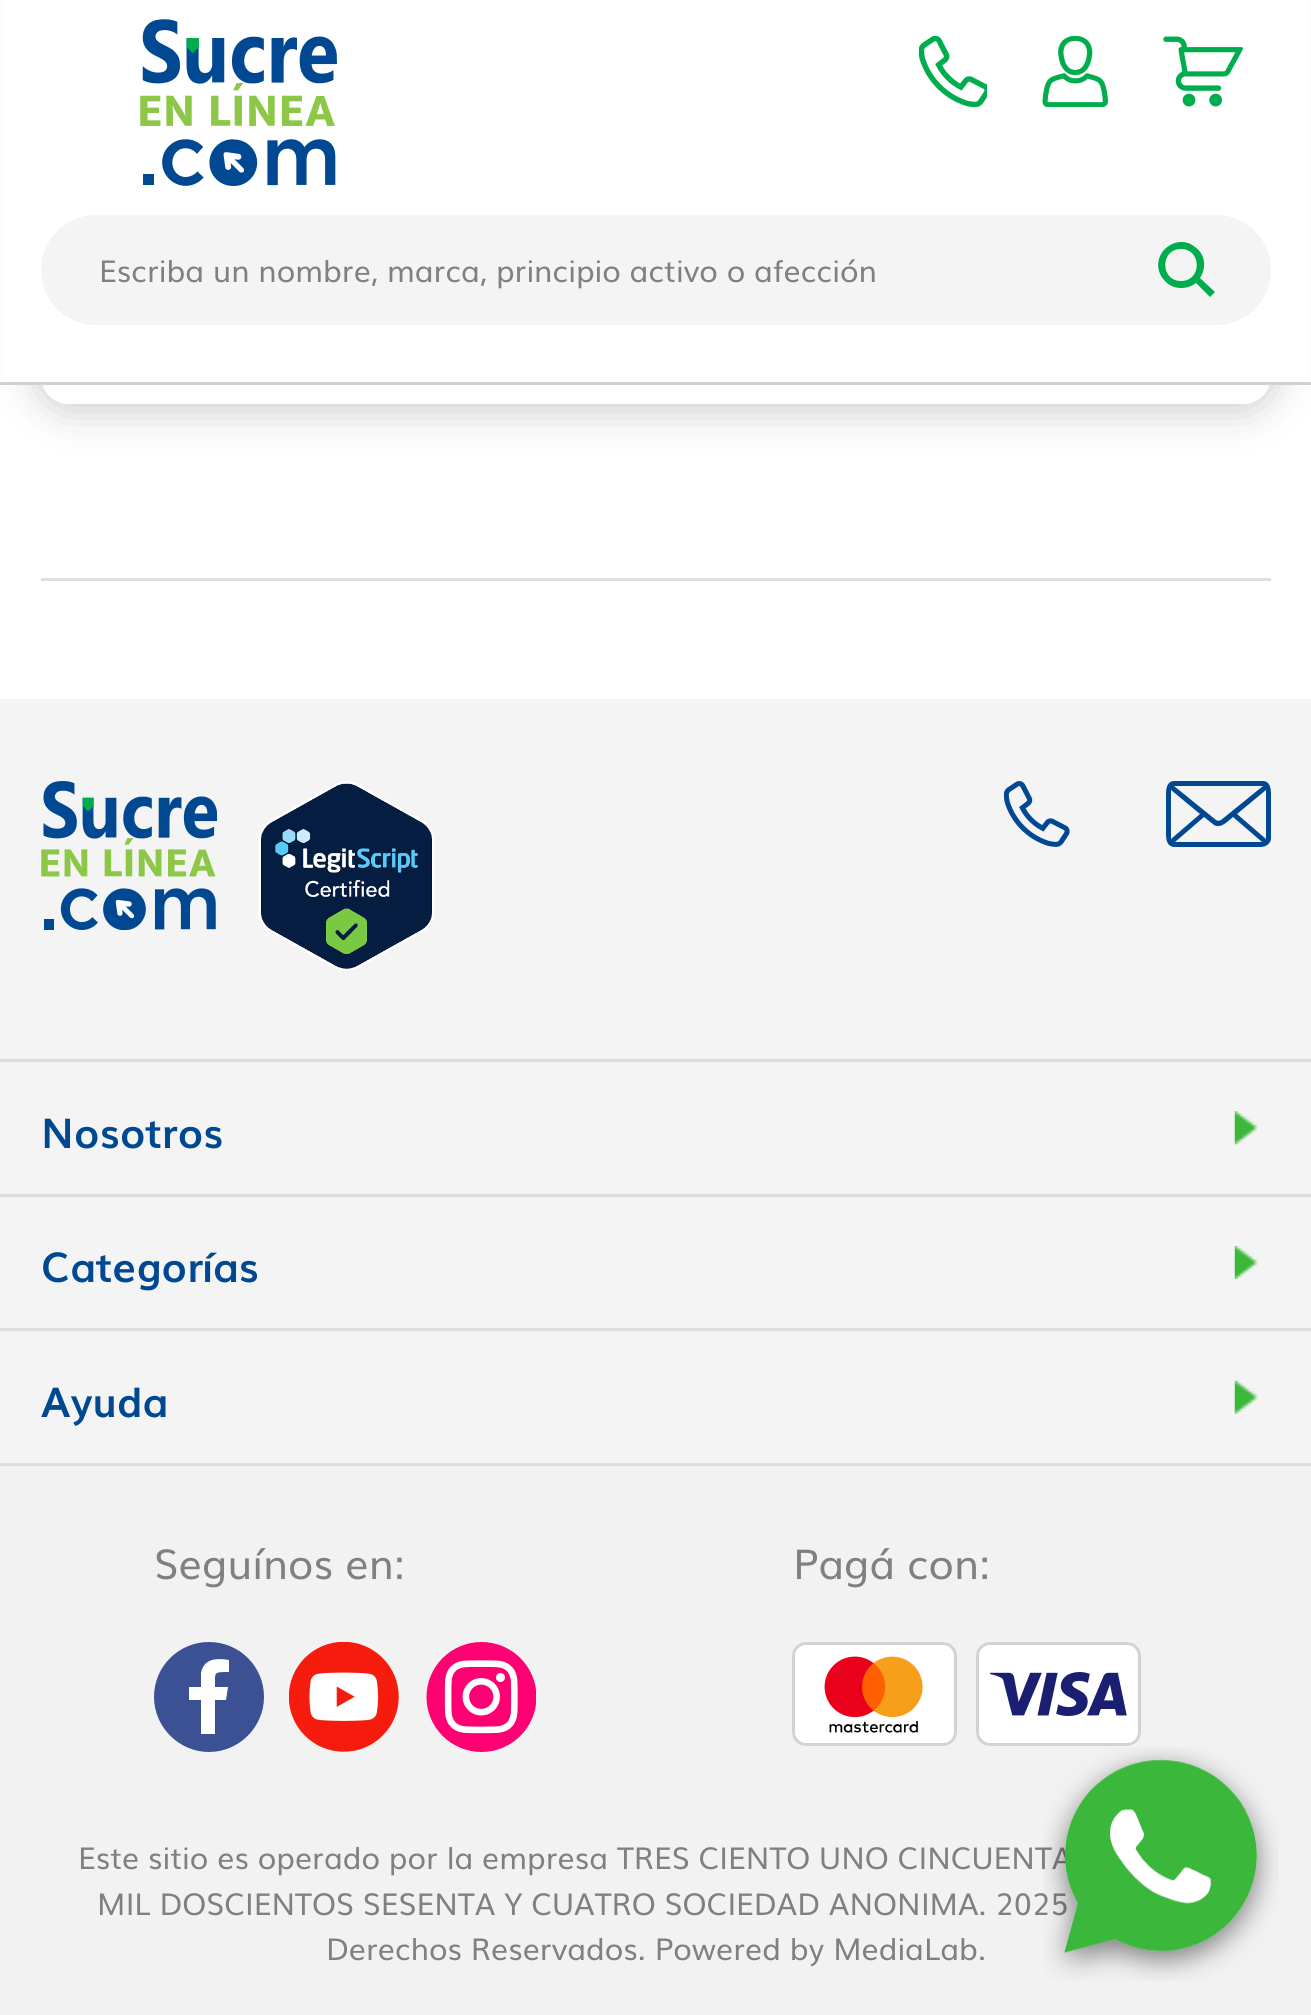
#include <cairo.h>
#include <math.h>
#include <stddef.h>

typedef struct { double x, y; const char *s; } line_t;
typedef struct { double x, y, w, h; unsigned color; } box_t;

static void ink(cairo_t *ctx, unsigned color) {
    cairo_set_source_rgb(ctx, (color >> 16) / 255.0, (color >> 8 & 255) / 255.0, (color & 255) / 255.0);
}

static void round_path(cairo_t *ctx, double x, double y, double w, double h, double r) {
    cairo_new_sub_path(ctx);
    cairo_arc(ctx, x + w - r, y + h - r, r, 0, M_PI / 2);
    cairo_arc(ctx, x + r, y + h - r, r, M_PI / 2, M_PI);
    cairo_arc(ctx, x + r, y + r, r, M_PI, 1.5 * M_PI);
    cairo_arc(ctx, x + w - r, y + r, r, 1.5 * M_PI, 2 * M_PI);
    cairo_close_path(ctx);
}

static void blur_box(cairo_t *ctx, double x, double y, double w, double h, double r, double blur, double alpha) {
    cairo_push_group_with_content(ctx, CAIRO_CONTENT_ALPHA);
    cairo_set_operator(ctx, CAIRO_OPERATOR_SOURCE);
    for (int i = 15; i >= -15 && fmin(w, h) + blur * i / 3 > 0; i -= 2) {
        double e = blur * i / 6;
        cairo_set_source_rgba(ctx, 0, 0, 0, alpha * erfc((i - 1) / 8.5) / 2);
        round_path(ctx, x - e, y - e, w + 2 * e, h + 2 * e, fmax(0, fmin(r + e + blur * .6, fmin(w, h) / 2 + e)));
        cairo_fill(ctx);
    }
    cairo_pattern_t *soft = cairo_pop_group(ctx);
    cairo_mask(ctx, soft);
    cairo_pattern_destroy(soft);
}

static void paste(cairo_t *ctx, const char *path, double x, double y, double w, double h) {
    cairo_surface_t *image = cairo_image_surface_create_from_png(path);
    cairo_save(ctx);
    cairo_set_source_surface(ctx, image, x, y);
    cairo_rectangle(ctx, x, y, w, h);
    cairo_fill(ctx);
    cairo_restore(ctx);
    cairo_surface_destroy(image);
}

int main(void) {
    cairo_surface_t *surface = cairo_image_surface_create(CAIRO_FORMAT_RGB24, 1311, 2015);
    cairo_t *ctx = cairo_create(surface);
    cairo_font_options_t *options = cairo_font_options_create();
    cairo_font_options_set_hint_metrics(options, CAIRO_HINT_METRICS_OFF);
    cairo_font_options_set_hint_style(options, CAIRO_HINT_STYLE_NONE);
    cairo_set_font_options(ctx, options);
    cairo_set_miter_limit(ctx, 4);
    ink(ctx, 0xFFFFFF);
    cairo_paint(ctx);
    cairo_save(ctx);
    cairo_set_fill_rule(ctx, CAIRO_FILL_RULE_EVEN_ODD);
    cairo_new_path(ctx);
    cairo_move_to(ctx, 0, 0);
    cairo_line_to(ctx, 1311, 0);
    cairo_line_to(ctx, 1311, 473);
    cairo_line_to(ctx, 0, 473);
    cairo_close_path(ctx);
    cairo_move_to(ctx, 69, -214);
    cairo_line_to(ctx, 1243, -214);
    cairo_curve_to(ctx, 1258.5, -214, 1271, -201.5, 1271, -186);
    cairo_line_to(ctx, 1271, 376);
    cairo_curve_to(ctx, 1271, 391.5, 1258.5, 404, 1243, 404);
    cairo_line_to(ctx, 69, 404);
    cairo_curve_to(ctx, 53.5, 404, 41, 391.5, 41, 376);
    cairo_line_to(ctx, 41, -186);
    cairo_curve_to(ctx, 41, -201.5, 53.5, -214, 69, -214);
    cairo_close_path(ctx);
    cairo_clip(ctx);
    ink(ctx, 0xCCCCCC);
    blur_box(ctx, 36, -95, 1240, 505, 33, 20.5, 1);
    cairo_restore(ctx);
    {
        static const box_t items[] = {
            {41, 578, 1230, 3, 0xE0E0E0},
            {2, 0, 1308, 382, 0xFFFFFF},
            {0, 382, 1311, 3, 0xD1D1D1},
        };
        for (size_t i = 0; i < sizeof items / sizeof *items; i++) {
            ink(ctx, items[i].color);
            cairo_rectangle(ctx, items[i].x, items[i].y, items[i].w, items[i].h);
            cairo_fill(ctx);
        }
    }
    paste(ctx, "media/1.png", 140, 19, 197, 167);
    paste(ctx, "media/2.png", 919, 36, 68, 71);
    paste(ctx, "media/3.png", 1042, 36, 66, 71);
    paste(ctx, "media/4.png", 1163, 36, 80, 71);
    ink(ctx, 0xF4F4F4);
    round_path(ctx, 42.5, 216.5, 1227, 107, 53.5);
    cairo_fill_preserve(ctx);
    cairo_set_line_width(ctx, 3);
    cairo_stroke(ctx);
    cairo_select_font_face(ctx, "Muli", CAIRO_FONT_SLANT_NORMAL, CAIRO_FONT_WEIGHT_NORMAL);
    cairo_set_font_size(ctx, 30.25);
    ink(ctx, 0x808080);
    cairo_move_to(ctx, 99, 282);
    cairo_show_text(ctx, "Escriba un nombre, marca, principio activo o afección");
    ink(ctx, 0x00AD4D);
    cairo_new_path(ctx);
    cairo_move_to(ctx, 1200, 278);
    cairo_curve_to(ctx, 1207, 267, 1205, 254, 1195, 247);
    cairo_curve_to(ctx, 1186, 239, 1172, 241, 1164, 250);
    cairo_curve_to(ctx, 1156, 259, 1156, 272, 1165, 281);
    cairo_curve_to(ctx, 1173, 290, 1187, 290, 1196, 283);
    cairo_line_to(ctx, 1210, 297);
    cairo_line_to(ctx, 1215, 292);
    cairo_close_path(ctx);
    cairo_move_to(ctx, 1181, 281);
    cairo_curve_to(ctx, 1160, 281, 1160, 249, 1181, 249);
    cairo_curve_to(ctx, 1202, 249, 1202, 281, 1181, 281);
    cairo_close_path(ctx);
    cairo_fill(ctx);
    ink(ctx, 0xF4F4F4);
    cairo_rectangle(ctx, 0, 699, 1311, 764);
    cairo_fill(ctx);
    paste(ctx, "media/5.png", 41, 781, 176, 149);
    paste(ctx, "media/6.png", 258, 781, 177, 190);
    paste(ctx, "media/7.png", 1004, 781, 66, 66);
    cairo_save(ctx);
    cairo_rectangle(ctx, 1166, 781, 105, 66);
    cairo_clip(ctx);
    ink(ctx, 0x004892);
    cairo_new_path(ctx);
    cairo_move_to(ctx, 1176, 781);
    cairo_curve_to(ctx, 1165, 780, 1166, 792, 1166, 798);
    cairo_line_to(ctx, 1166, 829);
    cairo_curve_to(ctx, 1166, 836, 1165, 846, 1174, 847);
    cairo_line_to(ctx, 1247, 847);
    cairo_curve_to(ctx, 1254, 847, 1269, 850, 1271, 839);
    cairo_line_to(ctx, 1271, 798);
    cairo_curve_to(ctx, 1271, 792, 1272, 780, 1261, 781);
    cairo_close_path(ctx);
    cairo_move_to(ctx, 1263, 786);
    cairo_line_to(ctx, 1221, 820);
    cairo_curve_to(ctx, 1219, 821, 1218, 821, 1216, 820);
    cairo_line_to(ctx, 1174, 786);
    cairo_close_path(ctx);
    cairo_move_to(ctx, 1171, 790);
    cairo_line_to(ctx, 1200, 814);
    cairo_line_to(ctx, 1171, 839);
    cairo_close_path(ctx);
    cairo_move_to(ctx, 1266, 790);
    cairo_line_to(ctx, 1266, 839);
    cairo_line_to(ctx, 1237, 814);
    cairo_close_path(ctx);
    cairo_move_to(ctx, 1204, 817);
    cairo_line_to(ctx, 1214, 825);
    cairo_curve_to(ctx, 1221, 829, 1228, 821, 1233, 817);
    cairo_line_to(ctx, 1262, 842);
    cairo_line_to(ctx, 1175, 842);
    cairo_close_path(ctx);
    cairo_fill(ctx);
    cairo_restore(ctx);
    paste(ctx, "media/8.png", 1234, 1111, 24, 34);
    ink(ctx, 0xD9DEE2);
    cairo_rectangle(ctx, 0, 1059, 1311, 3);
    cairo_fill(ctx);
    cairo_select_font_face(ctx, "Muli", CAIRO_FONT_SLANT_NORMAL, CAIRO_FONT_WEIGHT_BOLD);
    cairo_set_font_size(ctx, 41.25);
    ink(ctx, 0x004892);
    cairo_move_to(ctx, 41, 1148);
    cairo_show_text(ctx, "Nosotros");
    paste(ctx, "media/9.png", 1234, 1246, 24, 33);
    ink(ctx, 0xD9DEE2);
    cairo_rectangle(ctx, 0, 1194, 1311, 3);
    cairo_fill(ctx);
    ink(ctx, 0x004892);
    cairo_move_to(ctx, 41, 1282);
    cairo_show_text(ctx, "Categorías");
    paste(ctx, "media/10.png", 1234, 1380, 24, 34);
    ink(ctx, 0xD9DEE2);
    cairo_rectangle(ctx, 0, 1328, 1311, 3);
    cairo_fill(ctx);
    ink(ctx, 0x004892);
    cairo_move_to(ctx, 41, 1417);
    cairo_show_text(ctx, "Ayuda");
    ink(ctx, 0xF2F2F2);
    cairo_rectangle(ctx, 0, 1466, 1311, 549);
    cairo_fill(ctx);
    ink(ctx, 0xD9DEE2);
    cairo_rectangle(ctx, 0, 1463, 1311, 3);
    cairo_fill(ctx);
    cairo_select_font_face(ctx, "Muli", CAIRO_FONT_SLANT_NORMAL, CAIRO_FONT_WEIGHT_NORMAL);
    ink(ctx, 0x808080);
    cairo_move_to(ctx, 154, 1579);
    cairo_show_text(ctx, "Seguínos en:");
    ink(ctx, 0x3C5193);
    cairo_new_path(ctx);
    cairo_move_to(ctx, 264, 1697);
    cairo_curve_to(ctx, 264, 1727, 239, 1752, 209, 1752);
    cairo_curve_to(ctx, 179, 1752, 154, 1727, 154, 1697);
    cairo_curve_to(ctx, 154, 1666, 179, 1642, 209, 1642);
    cairo_curve_to(ctx, 239, 1642, 264, 1666, 264, 1697);
    cairo_close_path(ctx);
    cairo_fill(ctx);
    ink(ctx, 0xFFFFFF);
    cairo_new_path(ctx);
    cairo_move_to(ctx, 226, 1700);
    cairo_line_to(ctx, 228, 1687);
    cairo_line_to(ctx, 215, 1687);
    cairo_curve_to(ctx, 215, 1672, 213, 1672, 229, 1672);
    cairo_line_to(ctx, 229, 1660);
    cairo_curve_to(ctx, 217, 1658, 204, 1658, 201, 1673);
    cairo_line_to(ctx, 201, 1687);
    cairo_line_to(ctx, 189, 1687);
    cairo_line_to(ctx, 189, 1700);
    cairo_line_to(ctx, 201, 1700);
    cairo_line_to(ctx, 201, 1734);
    cairo_line_to(ctx, 215, 1734);
    cairo_line_to(ctx, 215, 1700);
    cairo_close_path(ctx);
    cairo_fill(ctx);
    paste(ctx, "media/11.png", 289, 1642, 110, 110);
    paste(ctx, "media/12.png", 426, 1642, 110, 110);
    ink(ctx, 0x808080);
    cairo_move_to(ctx, 793, 1579);
    cairo_show_text(ctx, "Pagá con:");
    paste(ctx, "media/13.png", 792, 1642, 165, 104);
    paste(ctx, "media/14.png", 976, 1642, 165, 104);
    cairo_set_font_size(ctx, 30.25);
    {
        static const line_t items[] = {
            {78, 1869, "Este sitio es operado por la empresa TRES CIENTO UNO CINCUENTA"},
            {97, 1915, "MIL DOSCIENTOS SESENTA Y CUATRO SOCIEDAD ANONIMA. 2025"},
            {326, 1960, "Derechos Reservados. Powered by MediaLab."},
        };
        for (size_t i = 0; i < sizeof items / sizeof *items; i++) {
            cairo_move_to(ctx, items[i].x, items[i].y);
            cairo_show_text(ctx, items[i].s);
        }
    }
    paste(ctx, "media/15.png", 1043, 1747, 236, 234);
    cairo_surface_write_to_png(surface, "image.png");
    cairo_font_options_destroy(options);
    cairo_destroy(ctx);
    cairo_surface_destroy(surface);
    return 0;
}
